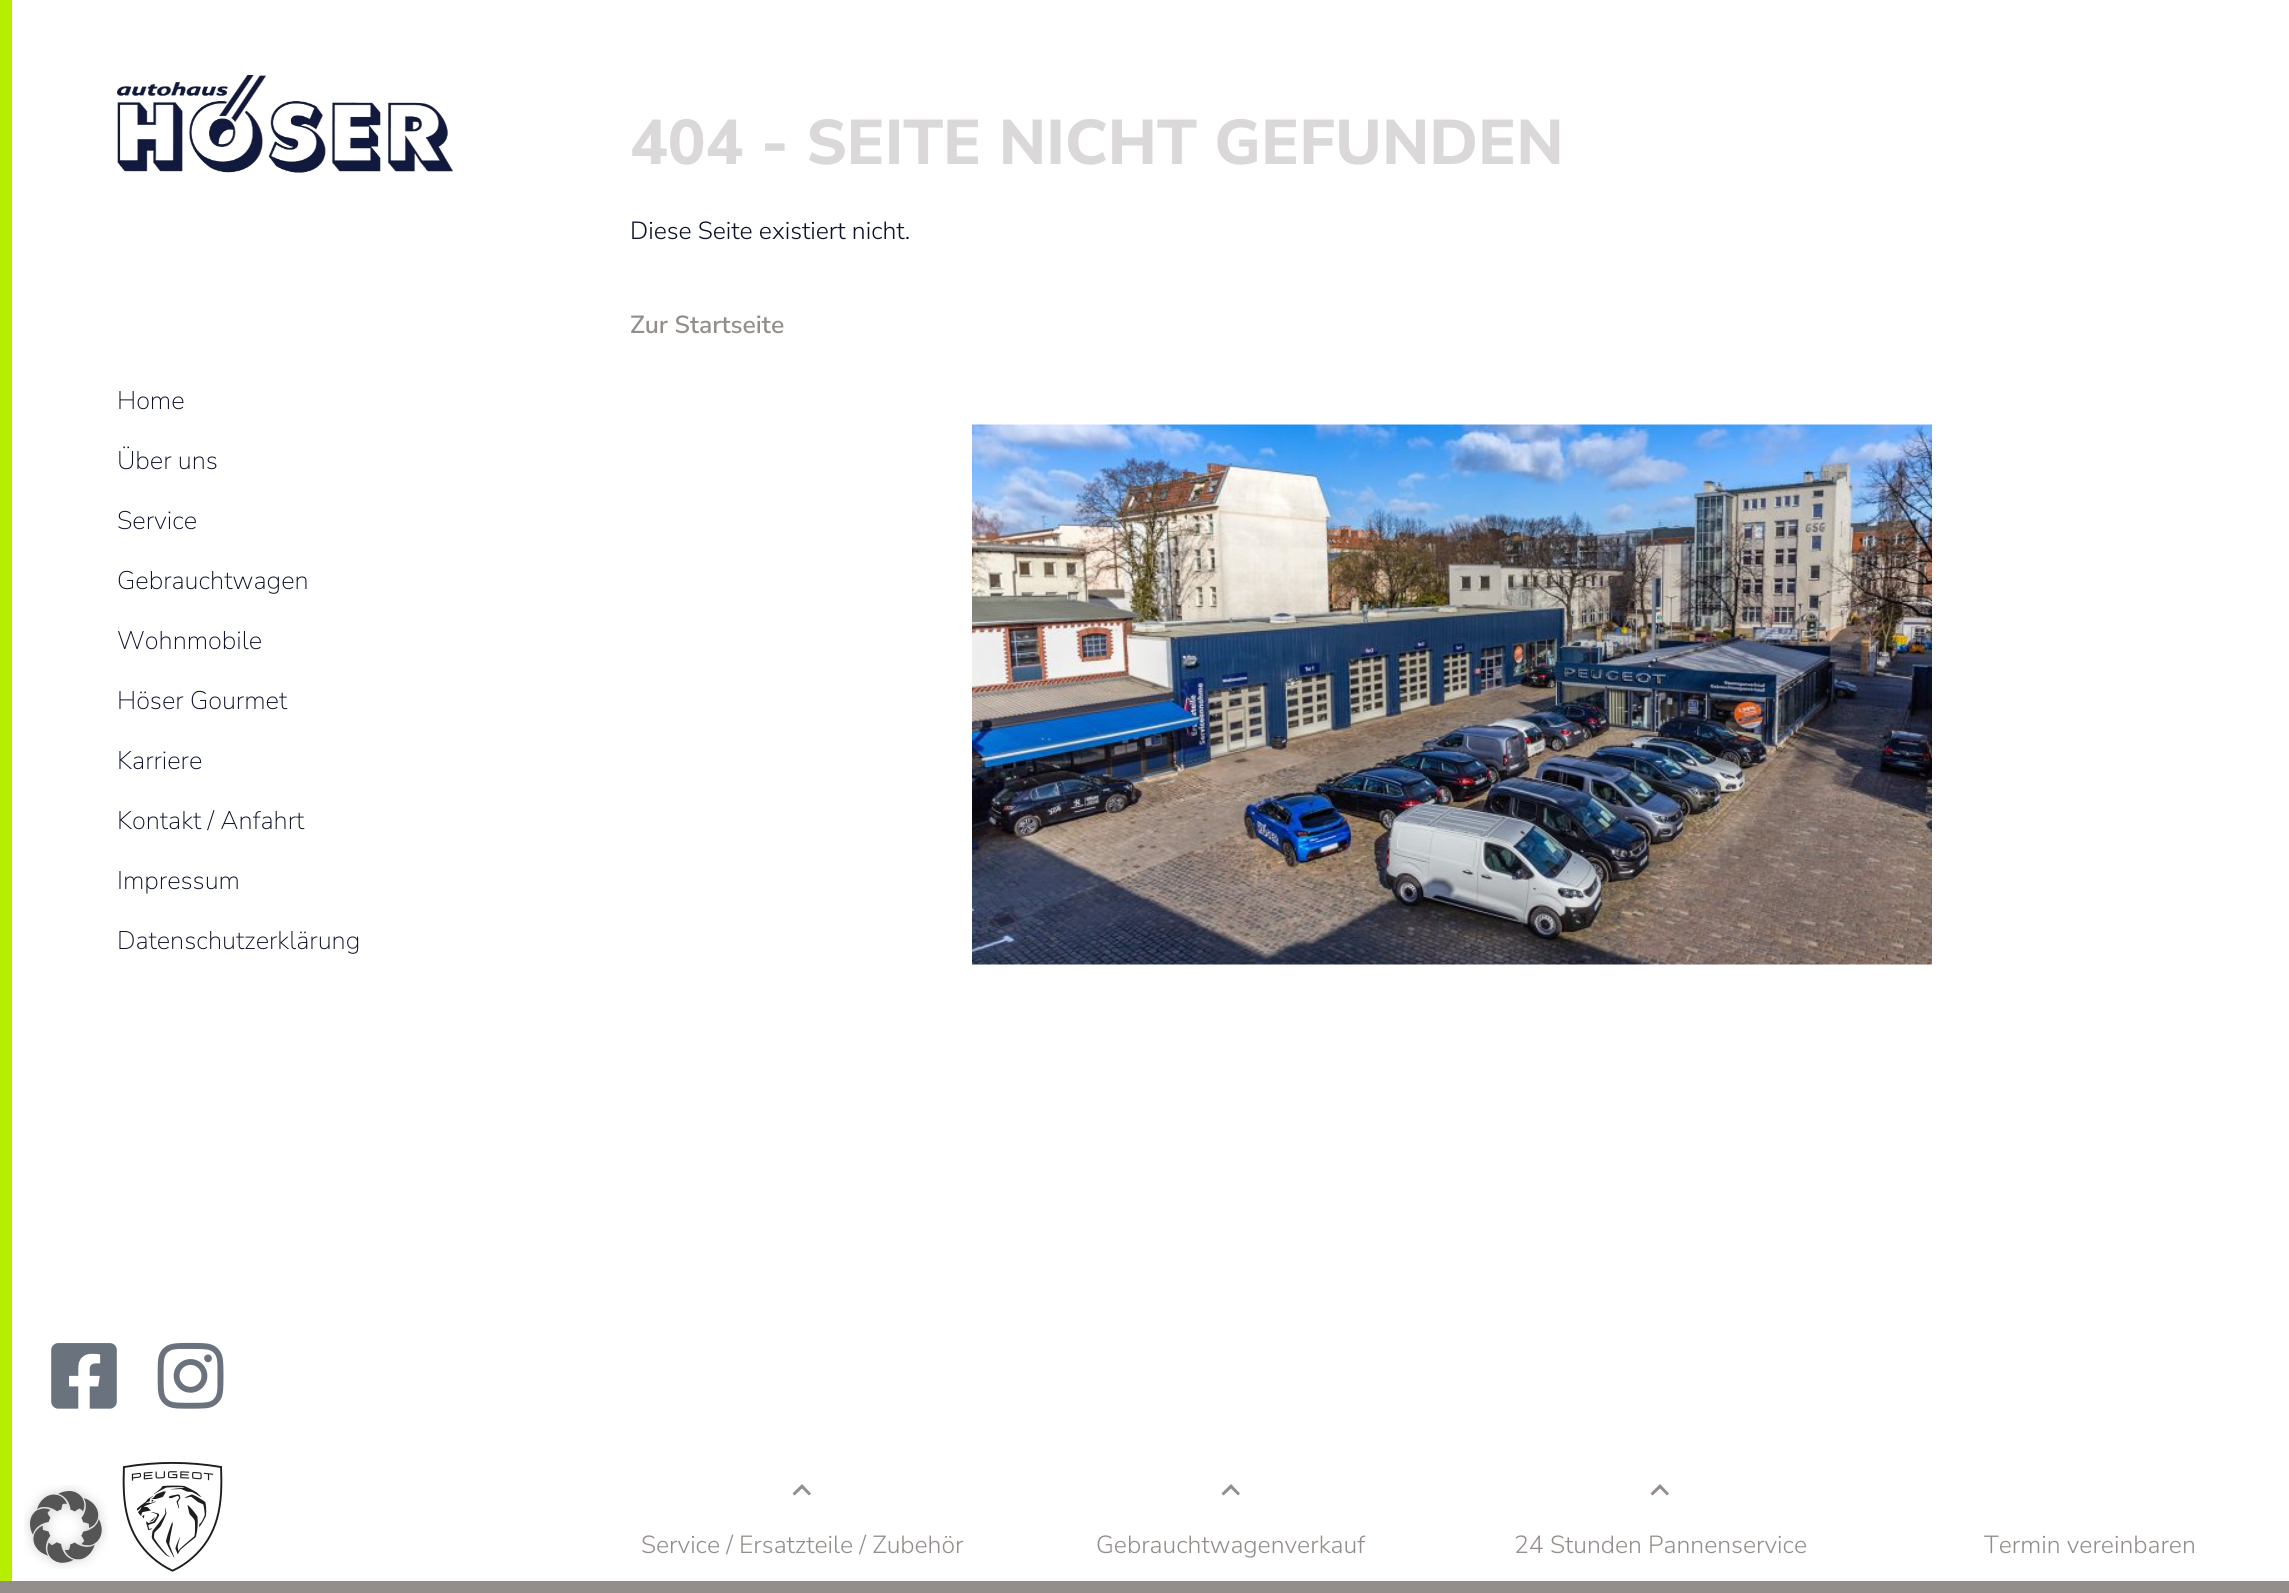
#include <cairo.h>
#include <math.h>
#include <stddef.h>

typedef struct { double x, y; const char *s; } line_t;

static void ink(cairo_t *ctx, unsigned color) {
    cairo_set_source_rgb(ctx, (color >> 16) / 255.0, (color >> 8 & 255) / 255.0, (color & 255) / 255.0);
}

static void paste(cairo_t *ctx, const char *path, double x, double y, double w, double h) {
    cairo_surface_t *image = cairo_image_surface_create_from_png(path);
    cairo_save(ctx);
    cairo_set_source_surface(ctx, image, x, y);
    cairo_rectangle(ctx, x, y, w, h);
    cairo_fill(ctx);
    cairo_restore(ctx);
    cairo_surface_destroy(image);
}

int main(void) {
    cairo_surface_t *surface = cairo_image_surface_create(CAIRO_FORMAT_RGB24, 2289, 1593);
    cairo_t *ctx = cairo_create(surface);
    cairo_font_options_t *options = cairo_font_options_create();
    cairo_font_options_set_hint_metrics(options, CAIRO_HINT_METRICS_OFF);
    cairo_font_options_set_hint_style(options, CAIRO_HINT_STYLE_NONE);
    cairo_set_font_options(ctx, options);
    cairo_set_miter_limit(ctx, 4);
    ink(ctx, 0xFFFFFF);
    cairo_paint(ctx);
    cairo_select_font_face(ctx, "Nunito Sans ExtraBold", CAIRO_FONT_SLANT_NORMAL, CAIRO_FONT_WEIGHT_NORMAL);
    cairo_set_font_size(ctx, 63);
    ink(ctx, 0xDAD8D8);
    cairo_move_to(ctx, 630, 164);
    cairo_show_text(ctx, "404 - SEITE NICHT GEFUNDEN");
    cairo_select_font_face(ctx, "Nunito Sans Light", CAIRO_FONT_SLANT_NORMAL, CAIRO_FONT_WEIGHT_NORMAL);
    cairo_set_font_size(ctx, 24.75);
    ink(ctx, 0x0C1029);
    cairo_move_to(ctx, 630, 239);
    cairo_show_text(ctx, "Diese Seite existiert nicht.");
    cairo_select_font_face(ctx, "Nunito Sans SemiBold", CAIRO_FONT_SLANT_NORMAL, CAIRO_FONT_WEIGHT_NORMAL);
    ink(ctx, 0x938E8B);
    cairo_move_to(ctx, 630, 333);
    cairo_show_text(ctx, "Zur Startseite");
    paste(ctx, "media/1.png", 972, 424, 960, 541);
    ink(ctx, 0xB6ED00);
    cairo_rectangle(ctx, 0, 0, 12, 1581);
    cairo_fill(ctx);
    paste(ctx, "media/2.png", 117, 75, 336, 98);
    cairo_select_font_face(ctx, "Nunito Sans ExtraLight", CAIRO_FONT_SLANT_NORMAL, CAIRO_FONT_WEIGHT_NORMAL);
    cairo_set_font_size(ctx, 25.5);
    ink(ctx, 0x0C1029);
    {
        static const line_t items[] = {
            {117, 409, "Home"},
            {117, 469, "Über uns"},
            {117, 529, "Service"},
            {117, 589, "Gebrauchtwagen"},
            {117, 649, "Wohnmobile"},
            {117, 709, "Höser Gourmet"},
            {117, 769, "Karriere"},
            {117, 829, "Kontakt / Anfahrt"},
            {117, 889, "Impressum"},
            {117, 949, "Datenschutzerklärung"},
        };
        for (size_t i = 0; i < sizeof items / sizeof *items; i++) {
            cairo_move_to(ctx, items[i].x, items[i].y);
            cairo_show_text(ctx, items[i].s);
        }
    }
    paste(ctx, "media/3.png", 24, 1485, 84, 84);
    ink(ctx, 0x938E8B);
    cairo_rectangle(ctx, 0, 1581, 2289, 12);
    cairo_fill(ctx);
    paste(ctx, "media/4.png", 51, 1343, 66, 66);
    paste(ctx, "media/5.png", 157, 1342, 67, 67);
    paste(ctx, "media/6.png", 122, 1461, 101, 111);
    cairo_new_path(ctx);
    cairo_move_to(ctx, 802, 1484);
    cairo_line_to(ctx, 811, 1493.5);
    cairo_line_to(ctx, 809, 1495.5);
    cairo_line_to(ctx, 802, 1488.5);
    cairo_line_to(ctx, 794.5, 1495.5);
    cairo_line_to(ctx, 792.5, 1493.5);
    cairo_close_path(ctx);
    cairo_fill(ctx);
    cairo_select_font_face(ctx, "Nunito Sans Light", CAIRO_FONT_SLANT_NORMAL, CAIRO_FONT_WEIGHT_NORMAL);
    cairo_set_font_size(ctx, 24.75);
    cairo_move_to(ctx, 641, 1553);
    cairo_show_text(ctx, "Service / Ersatzteile / Zubehör");
    cairo_new_path(ctx);
    cairo_move_to(ctx, 1231, 1484);
    cairo_line_to(ctx, 1240, 1493.5);
    cairo_line_to(ctx, 1238, 1495.5);
    cairo_line_to(ctx, 1231, 1488.5);
    cairo_line_to(ctx, 1223.5, 1495.5);
    cairo_line_to(ctx, 1221.5, 1493.5);
    cairo_close_path(ctx);
    cairo_fill(ctx);
    cairo_move_to(ctx, 1096, 1553);
    cairo_show_text(ctx, "Gebrauchtwagenverkauf");
    cairo_new_path(ctx);
    cairo_move_to(ctx, 1660, 1484);
    cairo_line_to(ctx, 1669, 1493.5);
    cairo_line_to(ctx, 1667, 1495.5);
    cairo_line_to(ctx, 1660, 1488.5);
    cairo_line_to(ctx, 1652.5, 1495.5);
    cairo_line_to(ctx, 1650.5, 1493.5);
    cairo_close_path(ctx);
    cairo_fill(ctx);
    cairo_move_to(ctx, 1514, 1553);
    cairo_show_text(ctx, "24 Stunden Pannenservice");
    cairo_move_to(ctx, 1984, 1553);
    cairo_show_text(ctx, "Termin vereinbaren");
    cairo_surface_write_to_png(surface, "image.png");
    cairo_font_options_destroy(options);
    cairo_destroy(ctx);
    cairo_surface_destroy(surface);
    return 0;
}
